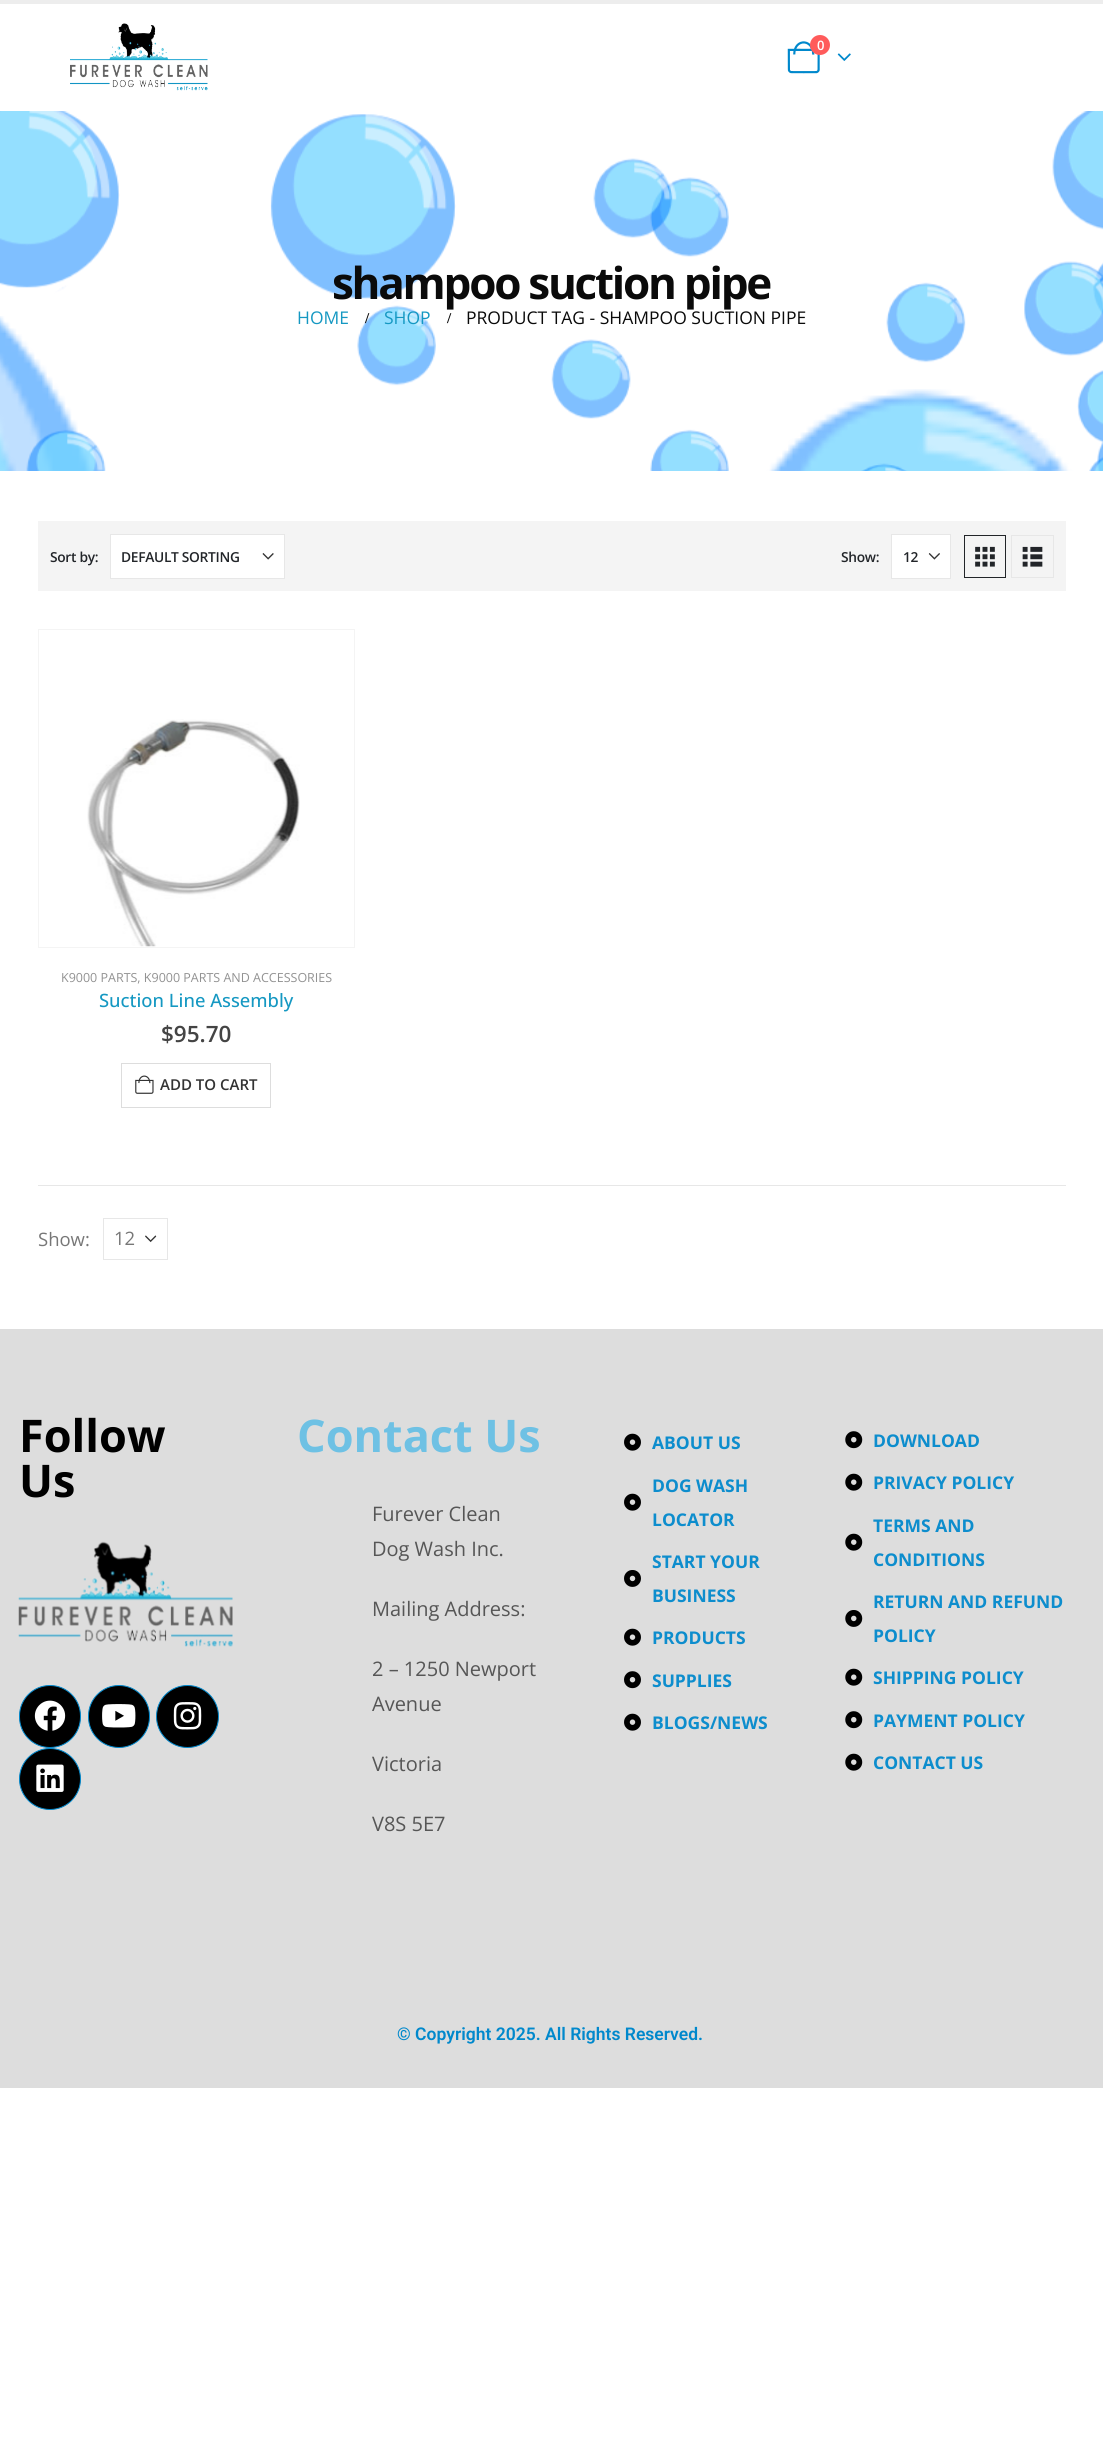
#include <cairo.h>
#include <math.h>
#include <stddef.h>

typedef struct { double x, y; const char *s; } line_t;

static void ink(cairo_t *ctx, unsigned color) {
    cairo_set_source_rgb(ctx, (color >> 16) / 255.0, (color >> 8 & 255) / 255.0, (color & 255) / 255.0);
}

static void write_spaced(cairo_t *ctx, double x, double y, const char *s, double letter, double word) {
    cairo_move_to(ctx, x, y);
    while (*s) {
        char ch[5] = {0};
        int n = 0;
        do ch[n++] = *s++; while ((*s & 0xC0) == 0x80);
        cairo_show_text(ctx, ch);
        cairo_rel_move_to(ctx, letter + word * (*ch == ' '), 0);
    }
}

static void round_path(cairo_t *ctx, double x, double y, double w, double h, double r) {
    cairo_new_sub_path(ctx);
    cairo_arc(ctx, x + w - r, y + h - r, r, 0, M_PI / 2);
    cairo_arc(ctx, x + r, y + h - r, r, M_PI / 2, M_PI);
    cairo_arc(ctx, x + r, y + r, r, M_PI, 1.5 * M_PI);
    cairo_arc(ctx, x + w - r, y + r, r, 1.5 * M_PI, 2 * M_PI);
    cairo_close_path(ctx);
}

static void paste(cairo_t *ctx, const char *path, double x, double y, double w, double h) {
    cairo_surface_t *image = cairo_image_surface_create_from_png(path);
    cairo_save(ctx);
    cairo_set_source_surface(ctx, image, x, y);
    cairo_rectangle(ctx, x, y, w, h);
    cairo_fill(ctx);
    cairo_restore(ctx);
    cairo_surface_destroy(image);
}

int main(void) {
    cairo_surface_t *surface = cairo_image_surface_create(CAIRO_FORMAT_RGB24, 1103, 2446);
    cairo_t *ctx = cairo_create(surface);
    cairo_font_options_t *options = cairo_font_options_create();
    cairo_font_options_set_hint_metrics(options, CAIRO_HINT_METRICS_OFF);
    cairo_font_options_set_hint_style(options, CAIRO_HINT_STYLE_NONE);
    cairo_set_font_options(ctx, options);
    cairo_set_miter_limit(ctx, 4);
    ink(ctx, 0xFFFFFF);
    cairo_paint(ctx);
    ink(ctx, 0xEDEDED);
    cairo_rectangle(ctx, 0, 0, 1103, 4);
    cairo_fill(ctx);
    paste(ctx, "media/1.png", 70, 23, 138, 68);
    paste(ctx, "media/2.png", 787, 41, 33, 33);
    ink(ctx, 0xFF5B5B);
    cairo_arc(ctx, 820, 45, 10, 0, 2 * M_PI);
    cairo_fill(ctx);
    cairo_select_font_face(ctx, "Open Sans SemiBold", CAIRO_FONT_SLANT_NORMAL, CAIRO_FONT_WEIGHT_NORMAL);
    cairo_set_font_size(ctx, 13);
    ink(ctx, 0xFFFFFF);
    cairo_move_to(ctx, 817, 50);
    cairo_show_text(ctx, "0");
    paste(ctx, "media/3.png", 837, 53, 14, 8);
    paste(ctx, "media/4.png", 0, 316, 1074, 155);
    paste(ctx, "media/5.png", 0, 111, 1103, 360);
    cairo_select_font_face(ctx, "Open Sans", CAIRO_FONT_SLANT_NORMAL, CAIRO_FONT_WEIGHT_BOLD);
    cairo_set_font_size(ctx, 44);
    ink(ctx, 0x0A0A0A);
    write_spaced(ctx, 332, 299, "shampoo suction pipe", -2.25, 0);
    cairo_select_font_face(ctx, "Open Sans", CAIRO_FONT_SLANT_NORMAL, CAIRO_FONT_WEIGHT_NORMAL);
    cairo_set_font_size(ctx, 17.5);
    ink(ctx, 0x1598C2);
    cairo_move_to(ctx, 297, 324);
    cairo_show_text(ctx, "HOME");
    cairo_select_font_face(ctx, "Liberation Serif", CAIRO_FONT_SLANT_NORMAL, CAIRO_FONT_WEIGHT_BOLD);
    cairo_set_font_size(ctx, 15);
    ink(ctx, 0x0A0A0A);
    cairo_move_to(ctx, 365, 323);
    cairo_show_text(ctx, "/");
    cairo_select_font_face(ctx, "Open Sans", CAIRO_FONT_SLANT_NORMAL, CAIRO_FONT_WEIGHT_NORMAL);
    cairo_set_font_size(ctx, 17.5);
    ink(ctx, 0x1598C2);
    cairo_move_to(ctx, 384, 324);
    cairo_show_text(ctx, "SHOP");
    cairo_select_font_face(ctx, "Liberation Serif", CAIRO_FONT_SLANT_NORMAL, CAIRO_FONT_WEIGHT_BOLD);
    cairo_set_font_size(ctx, 15);
    ink(ctx, 0x0A0A0A);
    cairo_move_to(ctx, 447, 323);
    cairo_show_text(ctx, "/");
    cairo_select_font_face(ctx, "Open Sans", CAIRO_FONT_SLANT_NORMAL, CAIRO_FONT_WEIGHT_NORMAL);
    cairo_set_font_size(ctx, 17.5);
    cairo_move_to(ctx, 466, 324);
    cairo_show_text(ctx, "PRODUCT TAG - SHAMPOO SUCTION PIPE");
    ink(ctx, 0xF4F4F4);
    cairo_rectangle(ctx, 38, 521, 1028, 70);
    cairo_fill(ctx);
    cairo_select_font_face(ctx, "Open Sans SemiBold", CAIRO_FONT_SLANT_NORMAL, CAIRO_FONT_WEIGHT_NORMAL);
    cairo_set_font_size(ctx, 13.75);
    ink(ctx, 0x222529);
    write_spaced(ctx, 50, 562, "Sort by:", -0.3, 0);
    ink(ctx, 0xFFFFFF);
    cairo_rectangle(ctx, 111, 535, 173, 43);
    cairo_fill(ctx);
    paste(ctx, "media/6.png", 262, 553, 12, 7);
    cairo_rectangle(ctx, 110.5, 534.5, 174, 44);
    ink(ctx, 0xE7E7E7);
    cairo_set_line_width(ctx, 1);
    cairo_stroke(ctx);
    ink(ctx, 0x222529);
    write_spaced(ctx, 121, 562, "DEFAULT SORTING", -0.3, 0);
    write_spaced(ctx, 841, 562, "Show:", -0.3, 0);
    ink(ctx, 0xFFFFFF);
    cairo_rectangle(ctx, 892, 535, 58, 43);
    cairo_fill(ctx);
    paste(ctx, "media/7.png", 928, 553, 12, 7);
    cairo_rectangle(ctx, 891.5, 534.5, 59, 44);
    ink(ctx, 0xE7E7E7);
    cairo_stroke(ctx);
    ink(ctx, 0x222529);
    write_spaced(ctx, 903, 562, "12", -0.3, 0);
    cairo_rectangle(ctx, 964.5, 535.5, 41, 42);
    cairo_stroke(ctx);
    paste(ctx, "media/8.png", 975, 546, 20, 21);
    cairo_rectangle(ctx, 1011.5, 535.5, 42, 42);
    ink(ctx, 0xE7E7E7);
    cairo_stroke(ctx);
    paste(ctx, "media/9.png", 1022, 546, 21, 21);
    cairo_rectangle(ctx, 38.5, 629.5, 316, 318);
    ink(ctx, 0xF4F4F4);
    cairo_stroke(ctx);
    paste(ctx, "media/10.png", 87, 719, 213, 228);
    cairo_select_font_face(ctx, "Open Sans", CAIRO_FONT_SLANT_NORMAL, CAIRO_FONT_WEIGHT_NORMAL);
    cairo_set_font_size(ctx, 12.5);
    ink(ctx, 0x929292);
    cairo_move_to(ctx, 61, 982);
    cairo_show_text(ctx, "K9000 PARTS, K9000 PARTS AND ACCESSORIES");
    cairo_select_font_face(ctx, "Open Sans Medium", CAIRO_FONT_SLANT_NORMAL, CAIRO_FONT_WEIGHT_NORMAL);
    cairo_set_font_size(ctx, 18.4);
    ink(ctx, 0x1598C2);
    cairo_move_to(ctx, 99, 1007);
    cairo_show_text(ctx, "Suction Line Assembly");
    cairo_select_font_face(ctx, "Open Sans SemiBold", CAIRO_FONT_SLANT_NORMAL, CAIRO_FONT_WEIGHT_NORMAL);
    cairo_set_font_size(ctx, 22.5);
    ink(ctx, 0x444444);
    cairo_move_to(ctx, 161, 1042);
    cairo_show_text(ctx, "$95.70");
    cairo_rectangle(ctx, 121.5, 1063.5, 149, 44);
    ink(ctx, 0xDDDDDD);
    cairo_stroke(ctx);
    paste(ctx, "media/11.png", 135, 1075, 19, 19);
    cairo_set_font_size(ctx, 15);
    ink(ctx, 0x333333);
    cairo_move_to(ctx, 160, 1090);
    cairo_show_text(ctx, "ADD TO CART");
    ink(ctx, 0xE7E7E7);
    cairo_rectangle(ctx, 38, 1185, 1028, 1);
    cairo_fill(ctx);
    cairo_select_font_face(ctx, "Open Sans", CAIRO_FONT_SLANT_NORMAL, CAIRO_FONT_WEIGHT_NORMAL);
    cairo_set_font_size(ctx, 18.5);
    ink(ctx, 0x777777);
    cairo_move_to(ctx, 38, 1246);
    cairo_show_text(ctx, "Show:");
    paste(ctx, "media/12.png", 145, 1235, 12, 8);
    cairo_rectangle(ctx, 103.5, 1218.5, 64, 41);
    ink(ctx, 0xE7E7E7);
    cairo_stroke(ctx);
    ink(ctx, 0x777777);
    cairo_move_to(ctx, 114, 1245);
    cairo_show_text(ctx, "12");
    ink(ctx, 0xDDDDDD);
    cairo_rectangle(ctx, 0, 1329, 1103, 759);
    cairo_fill(ctx);
    cairo_select_font_face(ctx, "Open Sans", CAIRO_FONT_SLANT_NORMAL, CAIRO_FONT_WEIGHT_BOLD);
    cairo_set_font_size(ctx, 45);
    ink(ctx, 0x000000);
    cairo_move_to(ctx, 19, 1452);
    cairo_show_text(ctx, "Follow");
    cairo_move_to(ctx, 19, 1497);
    cairo_show_text(ctx, "Us");
    paste(ctx, "media/13.png", 18, 1541, 215, 106);
    round_path(ctx, 19.5, 1685.5, 61, 62, 30.5);
    cairo_fill_preserve(ctx);
    ink(ctx, 0x0088CC);
    cairo_stroke(ctx);
    paste(ctx, "media/14.png", 34, 1700, 32, 31);
    ink(ctx, 0x000000);
    round_path(ctx, 88.5, 1685.5, 61, 62, 30.5);
    cairo_fill_preserve(ctx);
    ink(ctx, 0x0088CC);
    cairo_stroke(ctx);
    paste(ctx, "media/15.png", 102, 1704, 34, 24);
    ink(ctx, 0x000000);
    cairo_arc(ctx, 187.5, 1716.5, 31, 0, 2 * M_PI);
    cairo_fill_preserve(ctx);
    ink(ctx, 0x0088CC);
    cairo_stroke(ctx);
    paste(ctx, "media/16.png", 173, 1702, 29, 28);
    ink(ctx, 0x000000);
    cairo_arc(ctx, 50, 1779, 30.5, 0, 2 * M_PI);
    cairo_fill_preserve(ctx);
    ink(ctx, 0x0088CC);
    cairo_stroke(ctx);
    paste(ctx, "media/17.png", 36, 1764, 28, 28);
    ink(ctx, 0x6EC1E4);
    cairo_move_to(ctx, 297, 1452);
    cairo_show_text(ctx, "Contact Us");
    cairo_select_font_face(ctx, "Open Sans", CAIRO_FONT_SLANT_NORMAL, CAIRO_FONT_WEIGHT_NORMAL);
    cairo_set_font_size(ctx, 20);
    ink(ctx, 0x565656);
    {
        static const line_t items[] = {
            {372, 1521, "Furever Clean"},
            {372, 1556, "Dog Wash Inc."},
            {372, 1616, "Mailing Address:"},
            {372, 1676, "2 – 1250 Newport"},
            {372, 1711, "Avenue"},
            {372, 1771, "Victoria"},
            {372, 1831, "V8S 5E7"},
        };
        for (size_t i = 0; i < sizeof items / sizeof *items; i++) {
            cairo_move_to(ctx, items[i].x, items[i].y);
            cairo_show_text(ctx, items[i].s);
        }
    }
    paste(ctx, "media/18.png", 624, 1433, 17, 18);
    cairo_select_font_face(ctx, "Open Sans", CAIRO_FONT_SLANT_NORMAL, CAIRO_FONT_WEIGHT_BOLD);
    cairo_set_font_size(ctx, 17.5);
    ink(ctx, 0x0D8DCD);
    cairo_move_to(ctx, 652, 1449);
    cairo_show_text(ctx, "ABOUT US");
    paste(ctx, "media/18.png", 624, 1493, 17, 18);
    cairo_move_to(ctx, 652, 1492);
    cairo_show_text(ctx, "DOG WASH");
    cairo_move_to(ctx, 652, 1526);
    cairo_show_text(ctx, "LOCATOR");
    paste(ctx, "media/19.png", 624, 1570, 17, 17);
    cairo_move_to(ctx, 652, 1568);
    cairo_show_text(ctx, "START YOUR");
    cairo_move_to(ctx, 652, 1602);
    cairo_show_text(ctx, "BUSINESS");
    paste(ctx, "media/18.png", 624, 1628, 17, 18);
    cairo_move_to(ctx, 652, 1644);
    cairo_show_text(ctx, "PRODUCTS");
    paste(ctx, "media/20.png", 624, 1671, 17, 18);
    cairo_move_to(ctx, 652, 1687);
    cairo_show_text(ctx, "SUPPLIES");
    paste(ctx, "media/18.png", 624, 1713, 17, 18);
    cairo_move_to(ctx, 652, 1729);
    cairo_show_text(ctx, "BLOGS/NEWS");
    paste(ctx, "media/21.png", 845, 1431, 18, 18);
    cairo_move_to(ctx, 873, 1447);
    cairo_show_text(ctx, "DOWNLOAD");
    paste(ctx, "media/22.png", 845, 1473, 18, 18);
    cairo_move_to(ctx, 873, 1489);
    cairo_show_text(ctx, "PRIVACY POLICY");
    paste(ctx, "media/22.png", 845, 1533, 18, 18);
    cairo_move_to(ctx, 873, 1532);
    cairo_show_text(ctx, "TERMS AND");
    cairo_move_to(ctx, 873, 1566);
    cairo_show_text(ctx, "CONDITIONS");
    paste(ctx, "media/23.png", 845, 1610, 18, 17);
    cairo_move_to(ctx, 873, 1608);
    cairo_show_text(ctx, "RETURN AND REFUND");
    cairo_move_to(ctx, 873, 1642);
    cairo_show_text(ctx, "POLICY");
    paste(ctx, "media/22.png", 845, 1668, 18, 18);
    cairo_move_to(ctx, 873, 1684);
    cairo_show_text(ctx, "SHIPPING POLICY");
    paste(ctx, "media/21.png", 845, 1711, 18, 18);
    cairo_move_to(ctx, 873, 1727);
    cairo_show_text(ctx, "PAYMENT POLICY");
    paste(ctx, "media/22.png", 845, 1753, 18, 18);
    cairo_move_to(ctx, 873, 1769);
    cairo_show_text(ctx, "CONTACT US");
    cairo_select_font_face(ctx, "Roboto SemiBold", CAIRO_FONT_SLANT_NORMAL, CAIRO_FONT_WEIGHT_NORMAL);
    ink(ctx, 0x0088CC);
    cairo_move_to(ctx, 397, 2040);
    cairo_show_text(ctx, "© Copyright 2025. All Rights Reserved.");
    cairo_surface_write_to_png(surface, "image.png");
    cairo_font_options_destroy(options);
    cairo_destroy(ctx);
    cairo_surface_destroy(surface);
    return 0;
}
